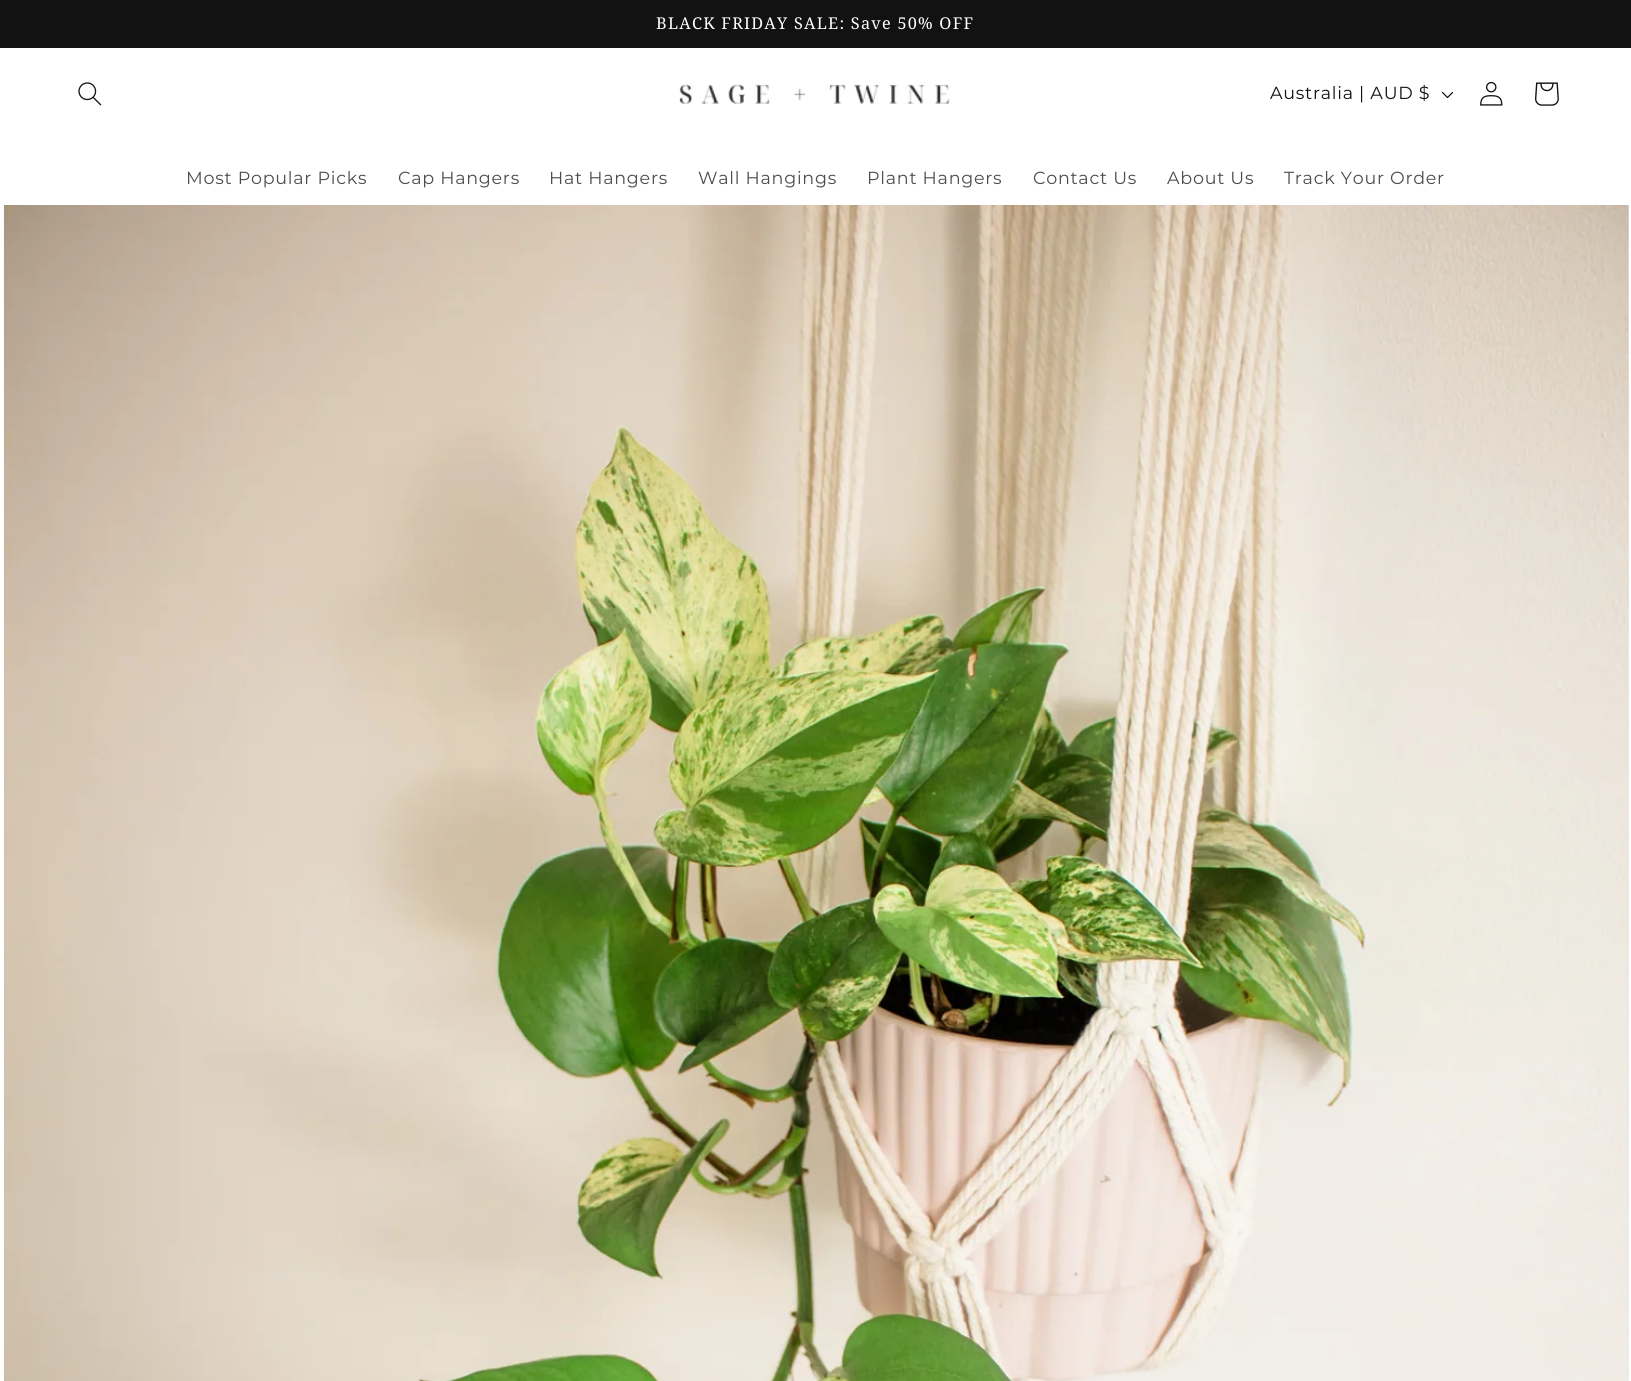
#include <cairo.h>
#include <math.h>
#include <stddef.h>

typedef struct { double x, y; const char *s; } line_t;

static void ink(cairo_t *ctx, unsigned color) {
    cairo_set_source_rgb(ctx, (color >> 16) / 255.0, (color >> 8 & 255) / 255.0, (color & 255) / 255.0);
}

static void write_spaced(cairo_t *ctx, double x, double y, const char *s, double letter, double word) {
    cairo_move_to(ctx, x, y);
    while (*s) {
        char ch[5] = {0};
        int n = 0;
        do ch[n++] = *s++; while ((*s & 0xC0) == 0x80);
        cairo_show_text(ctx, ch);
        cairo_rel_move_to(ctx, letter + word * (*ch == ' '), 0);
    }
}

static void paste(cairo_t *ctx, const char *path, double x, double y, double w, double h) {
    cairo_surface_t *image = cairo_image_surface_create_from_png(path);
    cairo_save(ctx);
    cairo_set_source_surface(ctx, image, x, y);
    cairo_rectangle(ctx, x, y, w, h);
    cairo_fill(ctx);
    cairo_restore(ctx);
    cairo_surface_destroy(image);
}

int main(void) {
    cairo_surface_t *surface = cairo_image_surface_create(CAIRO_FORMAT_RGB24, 1631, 1381);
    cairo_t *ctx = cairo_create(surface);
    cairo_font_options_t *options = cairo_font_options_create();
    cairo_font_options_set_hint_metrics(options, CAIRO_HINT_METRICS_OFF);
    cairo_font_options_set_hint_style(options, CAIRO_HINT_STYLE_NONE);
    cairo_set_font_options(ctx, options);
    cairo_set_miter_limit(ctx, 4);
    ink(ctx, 0xFFFFFF);
    cairo_paint(ctx);
    ink(ctx, 0x121212);
    cairo_rectangle(ctx, 0, 0, 1631, 48);
    cairo_fill(ctx);
    cairo_select_font_face(ctx, "Noto Serif", CAIRO_FONT_SLANT_NORMAL, CAIRO_FONT_WEIGHT_NORMAL);
    cairo_set_font_size(ctx, 16.25);
    ink(ctx, 0xFFFFFF);
    write_spaced(ctx, 656, 29, "BLACK FRIDAY SALE: Save 50% OFF", 1.25, 0);
    paste(ctx, "media/1.png", 78, 82, 24, 24);
    paste(ctx, "media/2.png", 679, 84, 271, 20);
    cairo_select_font_face(ctx, "Montserrat", CAIRO_FONT_SLANT_NORMAL, CAIRO_FONT_WEIGHT_NORMAL);
    cairo_set_font_size(ctx, 17.5);
    ink(ctx, 0x121212);
    write_spaced(ctx, 1270, 99, "Australia | AUD $", 0.75, 0);
    paste(ctx, "media/3.png", 1441, 91, 13, 8);
    paste(ctx, "media/4.png", 1480, 81, 23, 25);
    paste(ctx, "media/5.png", 1535, 82, 24, 24);
    ink(ctx, 0x4D4D4D);
    {
        static const line_t items[] = {
            {186, 184, "Most Popular Picks"},
            {398, 184, "Cap Hangers"},
            {549, 184, "Hat Hangers"},
            {698, 184, "Wall Hangings"},
            {867, 184, "Plant Hangers"},
            {1033, 184, "Contact Us"},
            {1167, 184, "About Us"},
            {1284, 184, "Track Your Order"},
        };
        for (size_t i = 0; i < sizeof items / sizeof *items; i++) {
            write_spaced(ctx, items[i].x, items[i].y, items[i].s, 0.75, 0);
        }
    }
    ink(ctx, 0xE8E8E8);
    cairo_rectangle(ctx, 1628, 205, 1, 1176);
    cairo_fill(ctx);
    paste(ctx, "media/6.png", 3, 205, 1626, 1176);
    cairo_surface_write_to_png(surface, "image.png");
    cairo_font_options_destroy(options);
    cairo_destroy(ctx);
    cairo_surface_destroy(surface);
    return 0;
}
